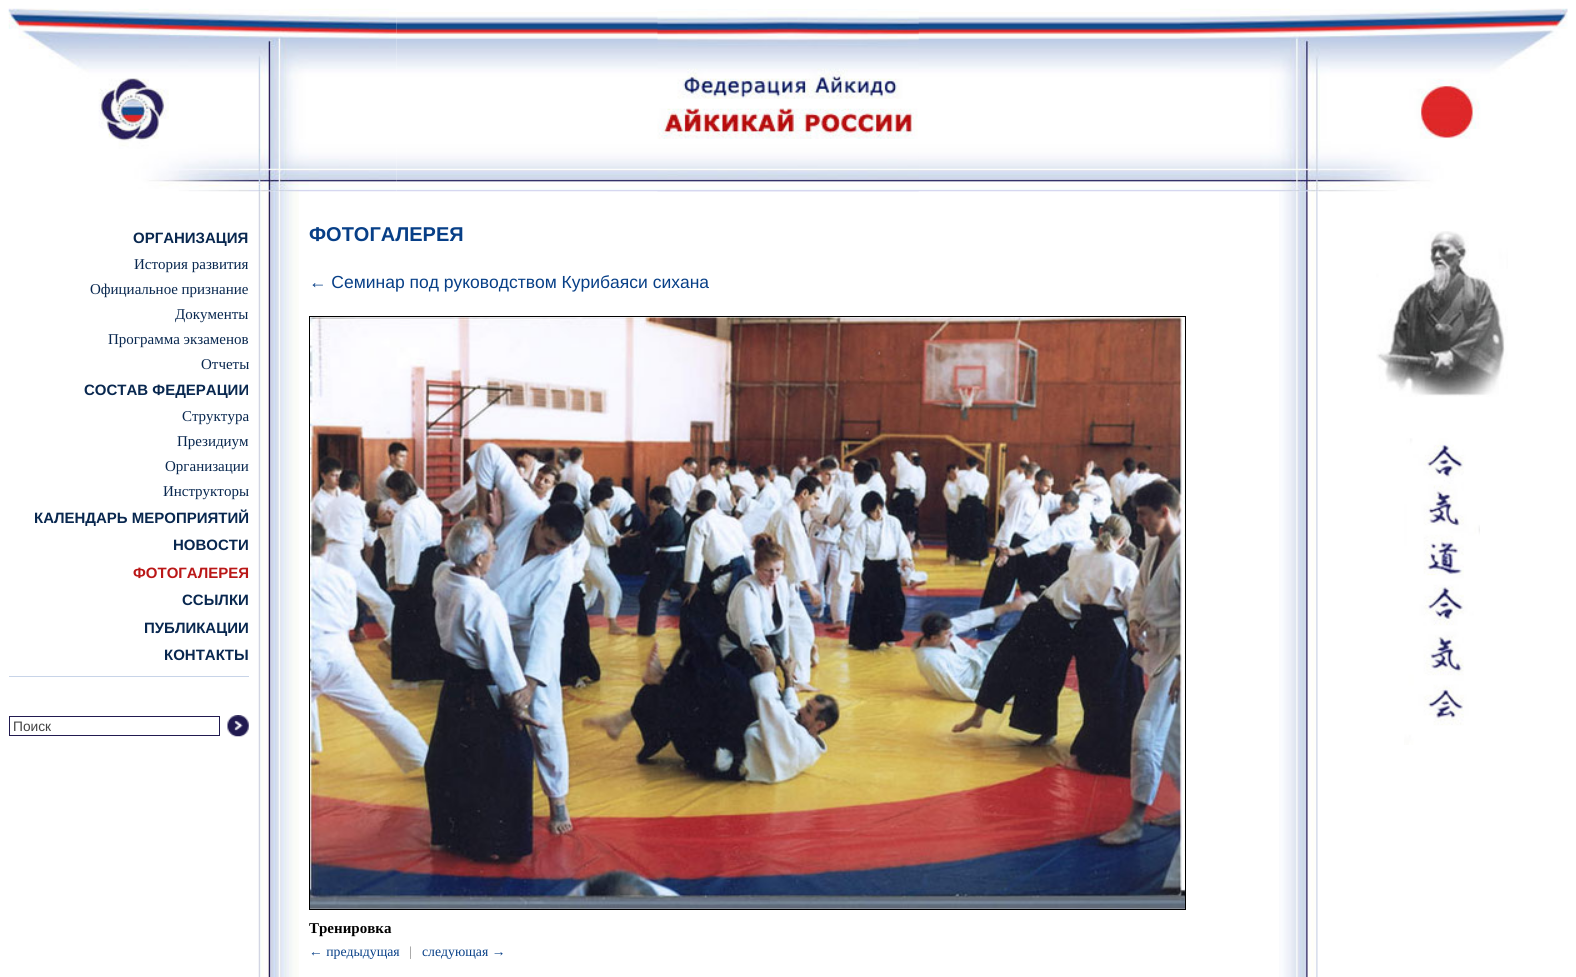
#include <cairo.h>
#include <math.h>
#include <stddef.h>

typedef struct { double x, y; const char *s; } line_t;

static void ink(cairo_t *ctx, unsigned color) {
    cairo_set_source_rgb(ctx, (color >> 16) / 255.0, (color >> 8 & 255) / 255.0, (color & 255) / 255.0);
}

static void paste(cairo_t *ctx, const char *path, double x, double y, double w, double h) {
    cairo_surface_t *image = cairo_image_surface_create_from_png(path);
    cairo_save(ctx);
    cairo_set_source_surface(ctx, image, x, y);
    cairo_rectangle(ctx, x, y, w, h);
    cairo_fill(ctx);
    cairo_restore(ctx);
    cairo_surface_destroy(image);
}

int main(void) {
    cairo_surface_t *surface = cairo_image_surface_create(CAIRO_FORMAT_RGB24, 1576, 977);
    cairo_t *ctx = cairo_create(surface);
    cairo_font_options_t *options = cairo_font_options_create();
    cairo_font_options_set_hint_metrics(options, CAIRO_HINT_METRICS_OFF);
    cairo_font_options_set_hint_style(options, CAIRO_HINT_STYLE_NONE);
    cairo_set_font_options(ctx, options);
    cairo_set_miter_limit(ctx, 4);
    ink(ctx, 0xFFFFFF);
    cairo_paint(ctx);
    paste(ctx, "media/2.png", 396, 12, 784, 180);
    paste(ctx, "media/5.png", 258, 191, 41, 786);
    paste(ctx, "media/1.png", 8, 8, 389, 184);
    paste(ctx, "media/3.png", 657, 9, 262, 183);
    paste(ctx, "media/8.png", 1279, 191, 39, 786);
    paste(ctx, "media/4.png", 1180, 8, 388, 184);
    cairo_select_font_face(ctx, "Liberation Sans", CAIRO_FONT_SLANT_NORMAL, CAIRO_FONT_WEIGHT_BOLD);
    cairo_set_font_size(ctx, 15);
    ink(ctx, 0x08274F);
    cairo_move_to(ctx, 133, 243);
    cairo_show_text(ctx, "ОРГАНИЗАЦИЯ");
    cairo_select_font_face(ctx, "Liberation Serif", CAIRO_FONT_SLANT_NORMAL, CAIRO_FONT_WEIGHT_NORMAL);
    {
        static const line_t items[] = {
            {134, 269, "История развития"},
            {90, 294, "Официальное признание"},
            {175, 319, "Документы"},
            {108, 344, "Программа экзаменов"},
            {201, 369, "Отчеты"},
        };
        for (size_t i = 0; i < sizeof items / sizeof *items; i++) {
            cairo_move_to(ctx, items[i].x, items[i].y);
            cairo_show_text(ctx, items[i].s);
        }
    }
    cairo_select_font_face(ctx, "Liberation Sans", CAIRO_FONT_SLANT_NORMAL, CAIRO_FONT_WEIGHT_BOLD);
    cairo_move_to(ctx, 84, 395);
    cairo_show_text(ctx, "СОСТАВ ФЕДЕРАЦИИ");
    cairo_select_font_face(ctx, "Liberation Serif", CAIRO_FONT_SLANT_NORMAL, CAIRO_FONT_WEIGHT_NORMAL);
    {
        static const line_t items[] = {
            {182, 421, "Структура"},
            {177, 446, "Президиум"},
            {165, 471, "Организации"},
            {163, 496, "Инструкторы"},
        };
        for (size_t i = 0; i < sizeof items / sizeof *items; i++) {
            cairo_move_to(ctx, items[i].x, items[i].y);
            cairo_show_text(ctx, items[i].s);
        }
    }
    cairo_select_font_face(ctx, "Liberation Sans", CAIRO_FONT_SLANT_NORMAL, CAIRO_FONT_WEIGHT_BOLD);
    cairo_move_to(ctx, 34, 523);
    cairo_show_text(ctx, "КАЛЕНДАРЬ МЕРОПРИЯТИЙ");
    cairo_move_to(ctx, 173, 550);
    cairo_show_text(ctx, "НОВОСТИ");
    ink(ctx, 0xBA1717);
    cairo_move_to(ctx, 133, 578);
    cairo_show_text(ctx, "ФОТОГАЛЕРЕЯ");
    ink(ctx, 0x08274F);
    {
        static const line_t items[] = {
            {182, 605, "ССЫЛКИ"},
            {144, 633, "ПУБЛИКАЦИИ"},
            {164, 660, "КОНТАКТЫ"},
        };
        for (size_t i = 0; i < sizeof items / sizeof *items; i++) {
            cairo_move_to(ctx, items[i].x, items[i].y);
            cairo_show_text(ctx, items[i].s);
        }
    }
    ink(ctx, 0xC8D4E8);
    cairo_rectangle(ctx, 9, 676, 240, 1);
    cairo_fill(ctx);
    cairo_rectangle(ctx, 9.5, 716.5, 210, 19);
    ink(ctx, 0x211A50);
    cairo_set_line_width(ctx, 1);
    cairo_stroke(ctx);
    cairo_select_font_face(ctx, "Liberation Sans", CAIRO_FONT_SLANT_NORMAL, CAIRO_FONT_WEIGHT_NORMAL);
    cairo_set_font_size(ctx, 13.75);
    ink(ctx, 0x434343);
    cairo_move_to(ctx, 13, 731);
    cairo_show_text(ctx, "Поиск");
    paste(ctx, "media/6.png", 227, 715, 22, 22);
    cairo_select_font_face(ctx, "Liberation Sans", CAIRO_FONT_SLANT_NORMAL, CAIRO_FONT_WEIGHT_BOLD);
    cairo_set_font_size(ctx, 20);
    ink(ctx, 0x073F87);
    cairo_move_to(ctx, 309, 241);
    cairo_show_text(ctx, "ФОТОГАЛЕРЕЯ");
    cairo_select_font_face(ctx, "Liberation Sans", CAIRO_FONT_SLANT_NORMAL, CAIRO_FONT_WEIGHT_NORMAL);
    cairo_set_font_size(ctx, 17.5);
    cairo_move_to(ctx, 309, 288);
    cairo_show_text(ctx, "← Семинар под руководством Курибаяси сихана");
    cairo_rectangle(ctx, 309.5, 316.5, 876, 593);
    ink(ctx, 0x000000);
    cairo_stroke(ctx);
    paste(ctx, "media/7.png", 310, 317, 875, 592);
    cairo_select_font_face(ctx, "Liberation Serif", CAIRO_FONT_SLANT_NORMAL, CAIRO_FONT_WEIGHT_BOLD);
    cairo_set_font_size(ctx, 15);
    cairo_move_to(ctx, 309, 933);
    cairo_show_text(ctx, "Тренировка");
    cairo_select_font_face(ctx, "Liberation Serif", CAIRO_FONT_SLANT_NORMAL, CAIRO_FONT_WEIGHT_NORMAL);
    cairo_set_font_size(ctx, 13.75);
    ink(ctx, 0x073F87);
    cairo_move_to(ctx, 309, 956);
    cairo_show_text(ctx, "← предыдущая");
    ink(ctx, 0x848484);
    cairo_move_to(ctx, 409, 956);
    cairo_show_text(ctx, "|");
    ink(ctx, 0x073F87);
    cairo_move_to(ctx, 422, 956);
    cairo_show_text(ctx, "следующая →");
    paste(ctx, "media/9.png", 1376, 231, 132, 166);
    paste(ctx, "media/10.png", 1404, 438, 76, 307);
    cairo_surface_write_to_png(surface, "image.png");
    cairo_font_options_destroy(options);
    cairo_destroy(ctx);
    cairo_surface_destroy(surface);
    return 0;
}
